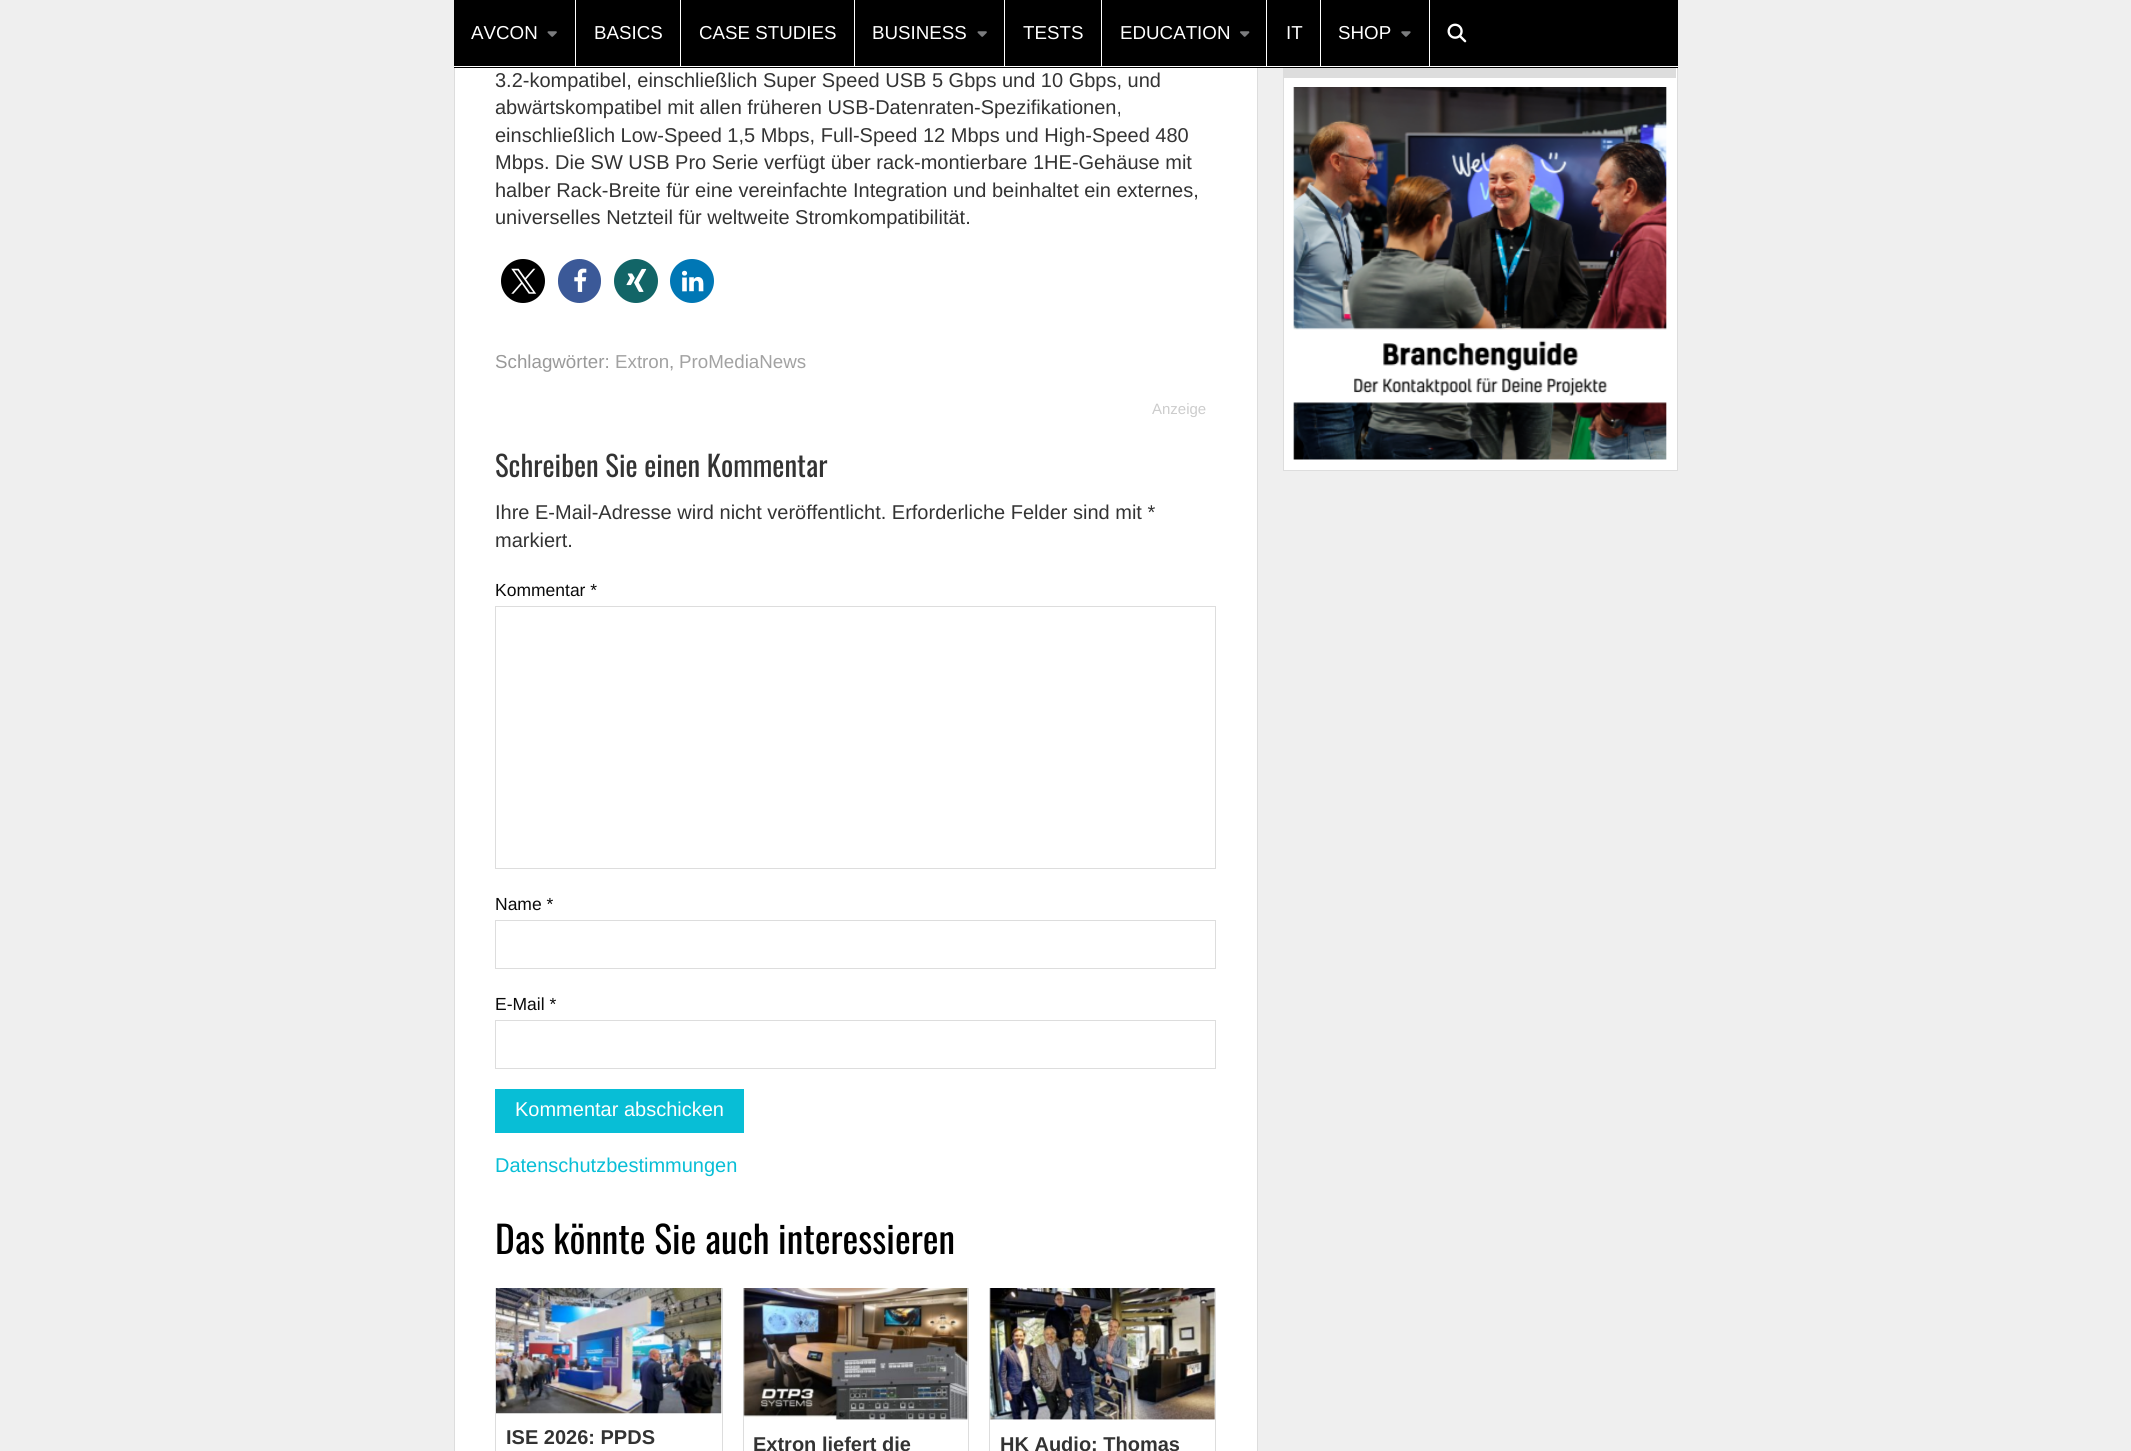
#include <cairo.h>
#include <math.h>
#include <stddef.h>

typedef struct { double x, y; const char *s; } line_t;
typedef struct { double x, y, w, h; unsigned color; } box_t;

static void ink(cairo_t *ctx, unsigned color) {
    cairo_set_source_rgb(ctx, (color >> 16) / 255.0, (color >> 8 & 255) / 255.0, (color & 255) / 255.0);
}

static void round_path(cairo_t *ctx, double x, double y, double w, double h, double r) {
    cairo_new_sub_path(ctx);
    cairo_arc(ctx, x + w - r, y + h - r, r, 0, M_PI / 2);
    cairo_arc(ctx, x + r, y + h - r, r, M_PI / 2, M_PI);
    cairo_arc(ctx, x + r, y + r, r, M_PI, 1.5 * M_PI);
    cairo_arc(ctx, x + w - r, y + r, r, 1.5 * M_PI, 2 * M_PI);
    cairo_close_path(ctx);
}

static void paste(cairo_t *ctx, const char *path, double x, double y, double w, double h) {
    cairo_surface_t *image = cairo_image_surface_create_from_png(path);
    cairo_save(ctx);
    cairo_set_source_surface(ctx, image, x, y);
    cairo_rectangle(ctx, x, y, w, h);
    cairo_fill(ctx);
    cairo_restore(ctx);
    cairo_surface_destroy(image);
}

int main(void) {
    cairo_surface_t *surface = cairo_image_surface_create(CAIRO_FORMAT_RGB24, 2131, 1451);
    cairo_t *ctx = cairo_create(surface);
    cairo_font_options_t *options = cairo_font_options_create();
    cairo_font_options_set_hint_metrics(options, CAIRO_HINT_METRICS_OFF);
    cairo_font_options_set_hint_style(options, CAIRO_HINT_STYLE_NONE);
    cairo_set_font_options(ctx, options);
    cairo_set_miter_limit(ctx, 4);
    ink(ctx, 0xEFEFEF);
    cairo_paint(ctx);
    ink(ctx, 0xFFFFFF);
    cairo_rectangle(ctx, 455, 68, 802, 1383);
    cairo_fill(ctx);
    cairo_rectangle(ctx, 454.5, -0.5, 803, 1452);
    ink(ctx, 0xDDDDDD);
    cairo_set_line_width(ctx, 1);
    cairo_stroke(ctx);
    ink(ctx, 0xFFFFFF);
    cairo_rectangle(ctx, 1284, 68, 393, 402);
    cairo_fill(ctx);
    cairo_rectangle(ctx, 1283.5, 28.5, 394, 442);
    ink(ctx, 0xDDDDDD);
    cairo_stroke(ctx);
    {
        static const box_t items[] = {
            {454, 0, 1224, 68, 0x000000},
            {454, 66, 1224, 1, 0xFFFFFF},
            {575, 0, 1, 66, 0xFFFFFF},
        };
        for (size_t i = 0; i < sizeof items / sizeof *items; i++) {
            ink(ctx, items[i].color);
            cairo_rectangle(ctx, items[i].x, items[i].y, items[i].w, items[i].h);
            cairo_fill(ctx);
        }
    }
    cairo_select_font_face(ctx, "Liberation Sans", CAIRO_FONT_SLANT_NORMAL, CAIRO_FONT_WEIGHT_NORMAL);
    cairo_set_font_size(ctx, 18.75);
    cairo_move_to(ctx, 471, 39);
    cairo_show_text(ctx, "AVCON");
    paste(ctx, "media/1.png", 547, 31, 10, 6);
    cairo_rectangle(ctx, 680, 0, 1, 66);
    cairo_fill(ctx);
    cairo_move_to(ctx, 594, 39);
    cairo_show_text(ctx, "BASICS");
    cairo_rectangle(ctx, 854, 0, 1, 66);
    cairo_fill(ctx);
    cairo_move_to(ctx, 699, 39);
    cairo_show_text(ctx, "CASE STUDIES");
    cairo_rectangle(ctx, 1004, 0, 1, 66);
    cairo_fill(ctx);
    cairo_move_to(ctx, 872, 39);
    cairo_show_text(ctx, "BUSINESS");
    paste(ctx, "media/1.png", 977, 31, 10, 6);
    cairo_rectangle(ctx, 1101, 0, 1, 66);
    cairo_fill(ctx);
    cairo_move_to(ctx, 1023, 39);
    cairo_show_text(ctx, "TESTS");
    cairo_rectangle(ctx, 1266, 0, 1, 66);
    cairo_fill(ctx);
    cairo_move_to(ctx, 1120, 39);
    cairo_show_text(ctx, "EDUCATION");
    paste(ctx, "media/2.png", 1240, 31, 10, 6);
    cairo_rectangle(ctx, 1320, 0, 1, 66);
    cairo_fill(ctx);
    cairo_move_to(ctx, 1286, 39);
    cairo_show_text(ctx, "IT");
    cairo_rectangle(ctx, 1429, 0, 1, 66);
    cairo_fill(ctx);
    cairo_move_to(ctx, 1338, 39);
    cairo_show_text(ctx, "SHOP");
    paste(ctx, "media/3.png", 1401, 31, 10, 6);
    paste(ctx, "media/4.png", 1447, 23, 20, 20);
    cairo_set_font_size(ctx, 20);
    ink(ctx, 0x333333);
    {
        static const line_t items[] = {
            {495, 87, "3.2-kompatibel, einschließlich Super Speed USB 5 Gbps und 10 Gbps, und"},
            {495, 114, "abwärtskompatibel mit allen früheren USB-Datenraten-Spezifikationen,"},
            {495, 142, "einschließlich Low-Speed 1,5 Mbps, Full-Speed 12 Mbps und High-Speed 480"},
            {495, 169, "Mbps. Die SW USB Pro Serie verfügt über rack-montierbare 1HE-Gehäuse mit"},
            {495, 197, "halber Rack-Breite für eine vereinfachte Integration und beinhaltet ein externes,"},
            {495, 224, "universelles Netzteil für weltweite Stromkompatibilität."},
        };
        for (size_t i = 0; i < sizeof items / sizeof *items; i++) {
            cairo_move_to(ctx, items[i].x, items[i].y);
            cairo_show_text(ctx, items[i].s);
        }
    }
    ink(ctx, 0x000000);
    cairo_new_path(ctx);
    cairo_arc(ctx, 523, 281, 22, 0, 2 * M_PI);
    cairo_fill(ctx);
    paste(ctx, "media/5.png", 511, 268, 26, 26);
    ink(ctx, 0x3B5998);
    round_path(ctx, 558, 259, 43, 44, 21.5);
    cairo_fill(ctx);
    paste(ctx, "media/6.png", 574, 268, 13, 24);
    ink(ctx, 0x126567);
    cairo_arc(ctx, 636, 281, 22, 0, 2 * M_PI);
    cairo_fill(ctx);
    paste(ctx, "media/7.png", 626, 268, 21, 24);
    ink(ctx, 0x0077B5);
    cairo_arc(ctx, 692, 281, 22, 0, 2 * M_PI);
    cairo_fill(ctx);
    paste(ctx, "media/8.png", 682, 270, 22, 22);
    cairo_set_font_size(ctx, 18.75);
    ink(ctx, 0x999999);
    cairo_move_to(ctx, 495, 368);
    cairo_show_text(ctx, "Schlagwörter:");
    ink(ctx, 0xA2A2A2);
    cairo_move_to(ctx, 615, 368);
    cairo_show_text(ctx, "Extron");
    ink(ctx, 0x999999);
    cairo_move_to(ctx, 669, 368);
    cairo_show_text(ctx, ",");
    ink(ctx, 0xA2A2A2);
    cairo_move_to(ctx, 679, 368);
    cairo_show_text(ctx, "ProMediaNews");
    cairo_set_font_size(ctx, 15);
    ink(ctx, 0xCCCCCC);
    cairo_move_to(ctx, 1152, 414);
    cairo_show_text(ctx, "Anzeige");
    cairo_select_font_face(ctx, "Oswald", CAIRO_FONT_SLANT_NORMAL, CAIRO_FONT_WEIGHT_NORMAL);
    cairo_set_font_size(ctx, 28.75);
    ink(ctx, 0x333333);
    cairo_move_to(ctx, 495, 477);
    cairo_show_text(ctx, "Schreiben Sie einen Kommentar");
    cairo_select_font_face(ctx, "Liberation Sans", CAIRO_FONT_SLANT_NORMAL, CAIRO_FONT_WEIGHT_NORMAL);
    cairo_set_font_size(ctx, 20);
    cairo_move_to(ctx, 495, 519);
    cairo_show_text(ctx, "Ihre E-Mail-Adresse wird nicht veröffentlicht. Erforderliche Felder sind mit *");
    cairo_move_to(ctx, 495, 547);
    cairo_show_text(ctx, "markiert.");
    cairo_set_font_size(ctx, 17.5);
    ink(ctx, 0x0A0A0A);
    cairo_move_to(ctx, 495, 596);
    cairo_show_text(ctx, "Kommentar *");
    cairo_rectangle(ctx, 495.5, 606.5, 720, 262);
    ink(ctx, 0xDDDDDD);
    cairo_stroke(ctx);
    ink(ctx, 0x0A0A0A);
    cairo_move_to(ctx, 495, 910);
    cairo_show_text(ctx, "Name *");
    cairo_rectangle(ctx, 495.5, 920.5, 720, 48);
    ink(ctx, 0xDDDDDD);
    cairo_stroke(ctx);
    ink(ctx, 0x0A0A0A);
    cairo_move_to(ctx, 495, 1010);
    cairo_show_text(ctx, "E-Mail *");
    cairo_rectangle(ctx, 495.5, 1020.5, 720, 48);
    ink(ctx, 0xDDDDDD);
    cairo_stroke(ctx);
    ink(ctx, 0x08BED6);
    cairo_rectangle(ctx, 495, 1089, 249, 44);
    cairo_fill(ctx);
    cairo_set_font_size(ctx, 20);
    ink(ctx, 0xFFFFFF);
    cairo_move_to(ctx, 515, 1116);
    cairo_show_text(ctx, "Kommentar abschicken");
    ink(ctx, 0x08BED6);
    cairo_move_to(ctx, 495, 1172);
    cairo_show_text(ctx, "Datenschutzbestimmungen");
    cairo_select_font_face(ctx, "Oswald", CAIRO_FONT_SLANT_NORMAL, CAIRO_FONT_WEIGHT_NORMAL);
    cairo_set_font_size(ctx, 37.5);
    ink(ctx, 0x000000);
    cairo_move_to(ctx, 495, 1254);
    cairo_show_text(ctx, "Das könnte Sie auch interessieren");
    cairo_rectangle(ctx, 495.5, 1288.5, 227, 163);
    ink(ctx, 0xDDDDDD);
    cairo_stroke(ctx);
    paste(ctx, "media/9.png", 496, 1288, 226, 126);
    cairo_select_font_face(ctx, "Liberation Sans", CAIRO_FONT_SLANT_NORMAL, CAIRO_FONT_WEIGHT_BOLD);
    cairo_set_font_size(ctx, 20);
    ink(ctx, 0x333333);
    cairo_move_to(ctx, 506, 1444);
    cairo_show_text(ctx, "ISE 2026: PPDS");
    cairo_rectangle(ctx, 743.5, 1288.5, 225, 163);
    ink(ctx, 0xDDDDDD);
    cairo_stroke(ctx);
    paste(ctx, "media/10.png", 743, 1288, 225, 132);
    ink(ctx, 0x333333);
    cairo_move_to(ctx, 753, 1451);
    cairo_show_text(ctx, "Extron liefert die");
    cairo_rectangle(ctx, 989.5, 1288.5, 226, 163);
    ink(ctx, 0xDDDDDD);
    cairo_stroke(ctx);
    paste(ctx, "media/11.png", 989, 1288, 226, 132);
    ink(ctx, 0x333333);
    cairo_move_to(ctx, 1000, 1451);
    cairo_show_text(ctx, "HK Audio: Thomas");
    ink(ctx, 0xDDDDDD);
    cairo_rectangle(ctx, 1284, 68, 392, 10);
    cairo_fill(ctx);
    paste(ctx, "media/12.png", 1293, 87, 374, 373);
    cairo_surface_write_to_png(surface, "image.png");
    cairo_font_options_destroy(options);
    cairo_destroy(ctx);
    cairo_surface_destroy(surface);
    return 0;
}
